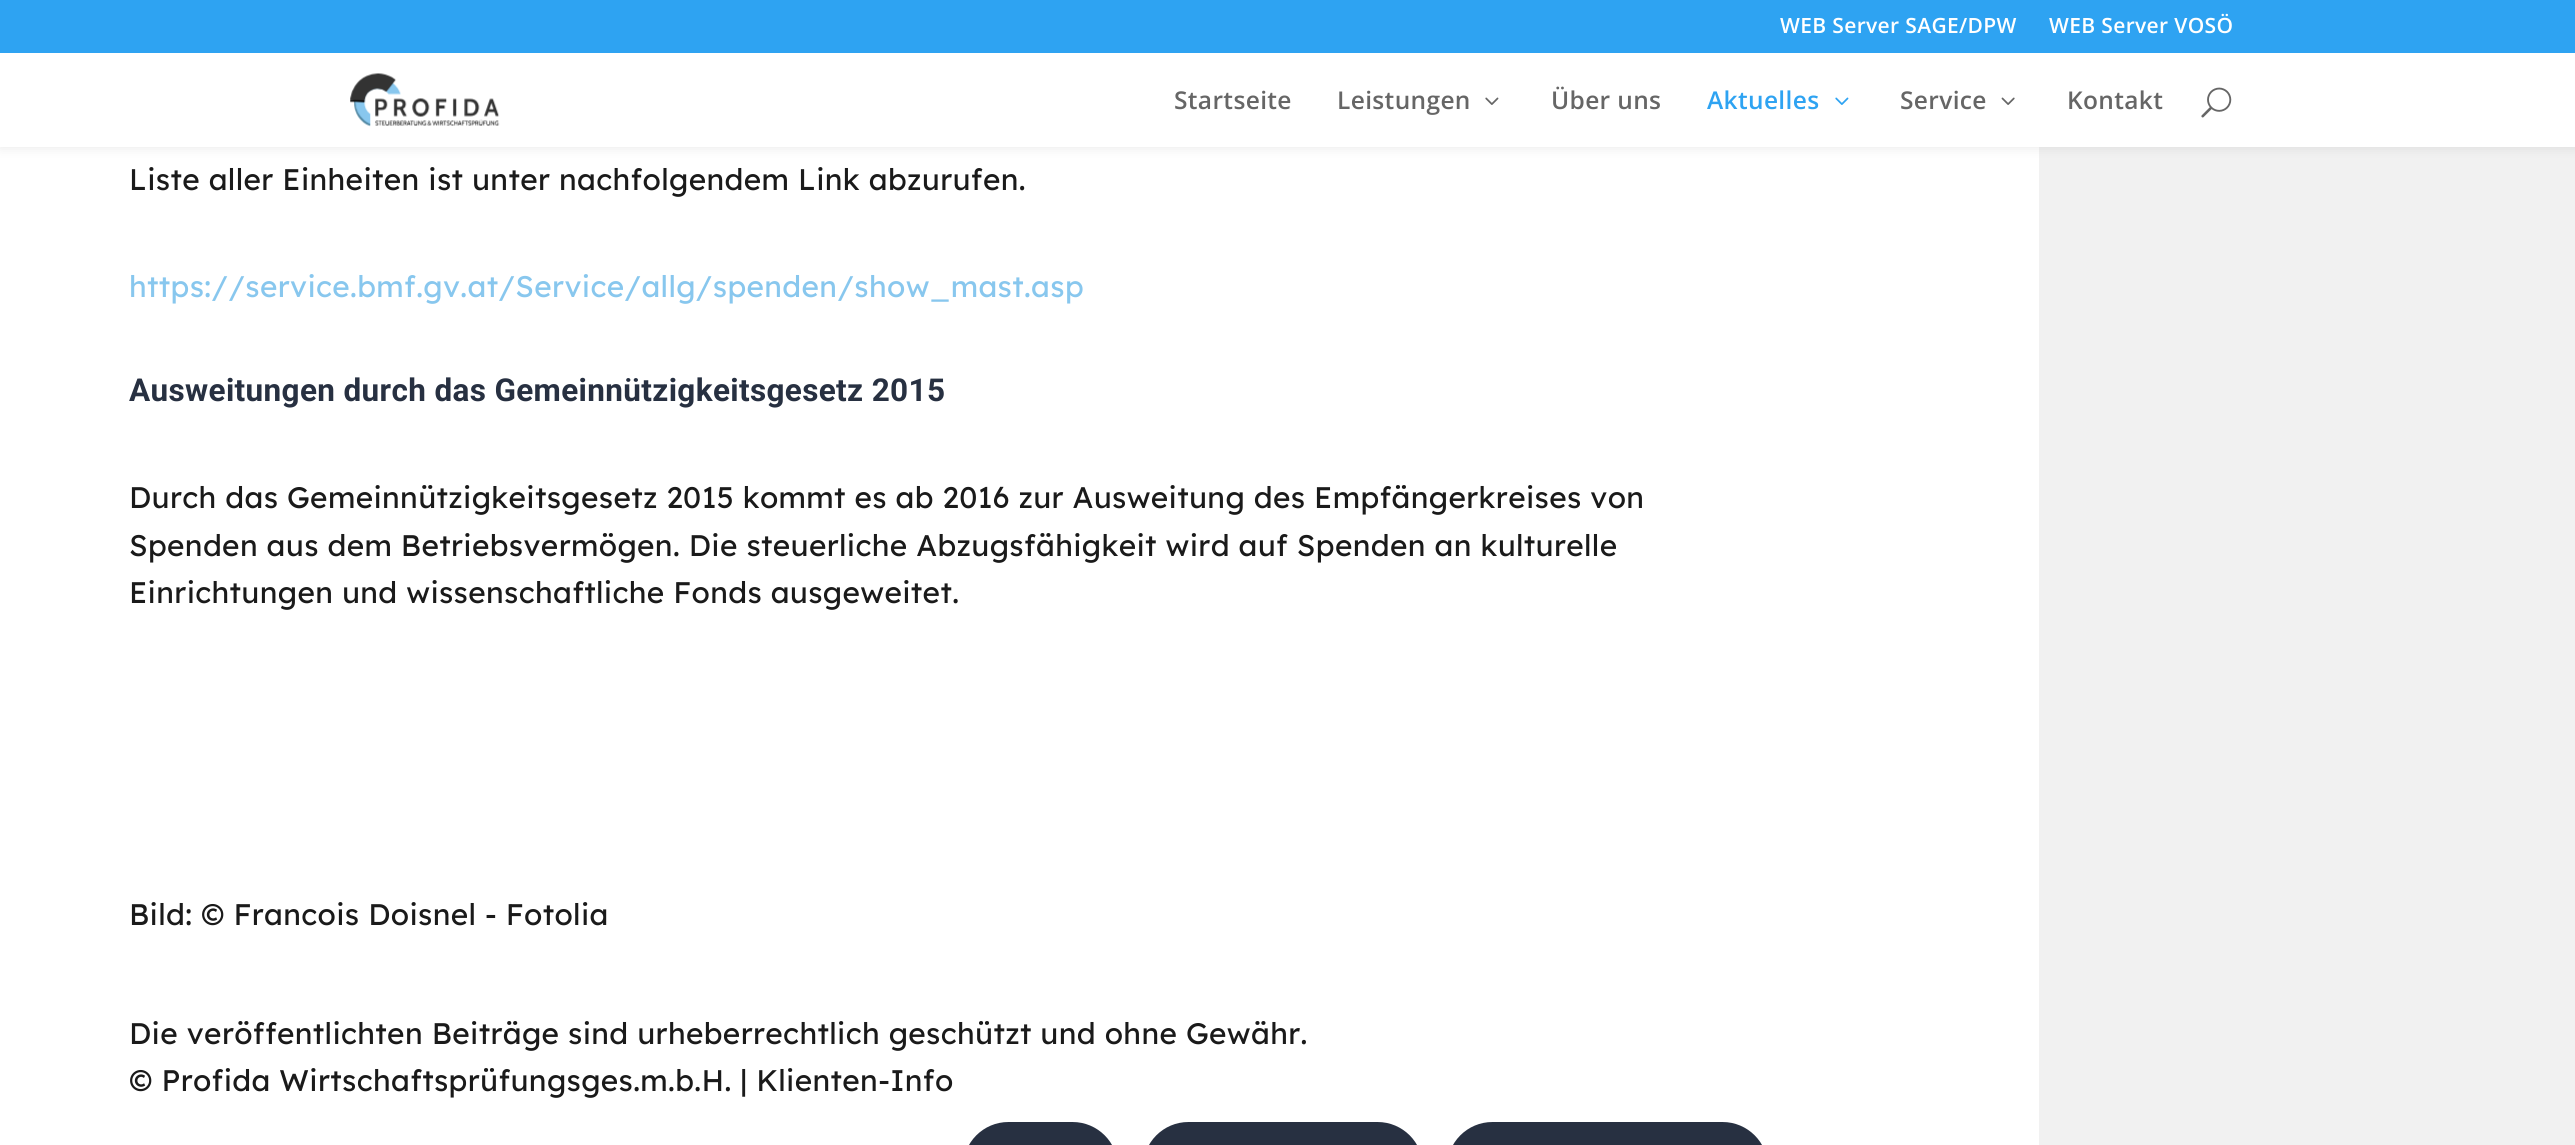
#include <cairo.h>
#include <math.h>
#include <stddef.h>

typedef struct { double x, y; const char *s; } line_t;

static void ink(cairo_t *ctx, unsigned color) {
    cairo_set_source_rgb(ctx, (color >> 16) / 255.0, (color >> 8 & 255) / 255.0, (color & 255) / 255.0);
}

static void write_spaced(cairo_t *ctx, double x, double y, const char *s, double letter, double word) {
    cairo_move_to(ctx, x, y);
    while (*s) {
        char ch[5] = {0};
        int n = 0;
        do ch[n++] = *s++; while ((*s & 0xC0) == 0x80);
        cairo_show_text(ctx, ch);
        cairo_rel_move_to(ctx, letter + word * (*ch == ' '), 0);
    }
}

static void round_path(cairo_t *ctx, double x, double y, double w, double h, double r) {
    cairo_new_sub_path(ctx);
    cairo_arc(ctx, x + w - r, y + h - r, r, 0, M_PI / 2);
    cairo_arc(ctx, x + r, y + h - r, r, M_PI / 2, M_PI);
    cairo_arc(ctx, x + r, y + r, r, M_PI, 1.5 * M_PI);
    cairo_arc(ctx, x + w - r, y + r, r, 1.5 * M_PI, 2 * M_PI);
    cairo_close_path(ctx);
}

static void blur_box(cairo_t *ctx, double x, double y, double w, double h, double r, double blur, double alpha) {
    cairo_push_group_with_content(ctx, CAIRO_CONTENT_ALPHA);
    cairo_set_operator(ctx, CAIRO_OPERATOR_SOURCE);
    for (int i = 15; i >= -15 && fmin(w, h) + blur * i / 3 > 0; i -= 2) {
        double e = blur * i / 6;
        cairo_set_source_rgba(ctx, 0, 0, 0, alpha * erfc((i - 1) / 8.5) / 2);
        round_path(ctx, x - e, y - e, w + 2 * e, h + 2 * e, fmax(0, fmin(r + e + blur * .6, fmin(w, h) / 2 + e)));
        cairo_fill(ctx);
    }
    cairo_pattern_t *soft = cairo_pop_group(ctx);
    cairo_mask(ctx, soft);
    cairo_pattern_destroy(soft);
}

static void paste(cairo_t *ctx, const char *path, double x, double y, double w, double h) {
    cairo_surface_t *image = cairo_image_surface_create_from_png(path);
    cairo_save(ctx);
    cairo_set_source_surface(ctx, image, x, y);
    cairo_rectangle(ctx, x, y, w, h);
    cairo_fill(ctx);
    cairo_restore(ctx);
    cairo_surface_destroy(image);
}

int main(void) {
    cairo_surface_t *surface = cairo_image_surface_create(CAIRO_FORMAT_RGB24, 2575, 1145);
    cairo_t *ctx = cairo_create(surface);
    cairo_font_options_t *options = cairo_font_options_create();
    cairo_font_options_set_hint_metrics(options, CAIRO_HINT_METRICS_OFF);
    cairo_font_options_set_hint_style(options, CAIRO_HINT_STYLE_NONE);
    cairo_set_font_options(ctx, options);
    cairo_set_miter_limit(ctx, 4);
    ink(ctx, 0xFFFFFF);
    cairo_paint(ctx);
    ink(ctx, 0xF1F1F1);
    cairo_rectangle(ctx, 2039, 147, 536, 998);
    cairo_fill(ctx);
    ink(ctx, 0x000000);
    blur_box(ctx, 0, 53, 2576, 94, 0, 6, 0.1);
    ink(ctx, 0x2EA3F2);
    cairo_rectangle(ctx, 0, 0, 2575, 53);
    cairo_fill(ctx);
    cairo_select_font_face(ctx, "Open Sans SemiBold", CAIRO_FONT_SLANT_NORMAL, CAIRO_FONT_WEIGHT_NORMAL);
    cairo_set_font_size(ctx, 21);
    ink(ctx, 0xFFFFFF);
    write_spaced(ctx, 1780, 33, "WEB Server SAGE/DPW", 0.35, 0);
    write_spaced(ctx, 2049, 33, "WEB Server VOSÖ", 0.35, 0);
    cairo_rectangle(ctx, 0, 53, 2575, 94);
    cairo_fill(ctx);
    paste(ctx, "media/1.png", 350, 73, 150, 54);
    cairo_set_font_size(ctx, 24.5);
    ink(ctx, 0x666666);
    write_spaced(ctx, 1174, 109, "Startseite", 0.35, 0);
    write_spaced(ctx, 1337, 109, "Leistungen", 0.35, 0);
    paste(ctx, "media/2.png", 1485, 97, 14, 8);
    write_spaced(ctx, 1551, 109, "Über uns", 0.35, 0);
    ink(ctx, 0x2EA3F2);
    write_spaced(ctx, 1707, 109, "Aktuelles", 0.35, 0);
    paste(ctx, "media/3.png", 1835, 97, 14, 8);
    ink(ctx, 0x666666);
    write_spaced(ctx, 1900, 109, "Service", 0.35, 0);
    paste(ctx, "media/4.png", 2001, 97, 14, 8);
    write_spaced(ctx, 2067, 109, "Kontakt", 0.35, 0);
    paste(ctx, "media/5.png", 2201, 87, 31, 31);
    cairo_select_font_face(ctx, "Lexend Deca", CAIRO_FONT_SLANT_NORMAL, CAIRO_FONT_WEIGHT_NORMAL);
    cairo_set_font_size(ctx, 29.75);
    ink(ctx, 0x1A1A1A);
    write_spaced(ctx, 129, 190, "Liste aller Einheiten ist unter nachfolgendem Link abzurufen.", 0.35, 0);
    ink(ctx, 0x88C7EE);
    write_spaced(ctx, 129, 297, "https://service.bmf.gv.at/Service/allg/spenden/show_mast.asp", 0.35, 0);
    cairo_select_font_face(ctx, "Roboto", CAIRO_FONT_SLANT_NORMAL, CAIRO_FONT_WEIGHT_BOLD);
    cairo_set_font_size(ctx, 31.5);
    ink(ctx, 0x273041);
    write_spaced(ctx, 129, 401, "Ausweitungen durch das Gemeinnützigkeitsgesetz 2015", 0.35, 0);
    cairo_select_font_face(ctx, "Lexend Deca", CAIRO_FONT_SLANT_NORMAL, CAIRO_FONT_WEIGHT_NORMAL);
    cairo_set_font_size(ctx, 29.75);
    ink(ctx, 0x1A1A1A);
    {
        static const line_t items[] = {
            {129, 508, "Durch das Gemeinnützigkeitsgesetz 2015 kommt es ab 2016 zur Ausweitung des Empfängerkreises von"},
            {129, 556, "Spenden aus dem Betriebsvermögen. Die steuerliche Abzugsfähigkeit wird auf Spenden an kulturelle"},
            {129, 603, "Einrichtungen und wissenschaftliche Fonds ausgeweitet."},
            {129, 925, "Bild: © Francois Doisnel - Fotolia"},
            {129, 1044, "Die veröffentlichten Beiträge sind urheberrechtlich geschützt und ohne Gewähr."},
            {129, 1091, "© Profida Wirtschaftsprüfungsges.m.b.H. | Klienten-Info"},
        };
        for (size_t i = 0; i < sizeof items / sizeof *items; i++) {
            write_spaced(ctx, items[i].x, items[i].y, items[i].s, 0.35, 0);
        }
    }
    ink(ctx, 0x273041);
    round_path(ctx, 963, 1122, 155, 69, 45.5);
    cairo_fill(ctx);
    round_path(ctx, 1143, 1122, 280, 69, 45.5);
    cairo_fill(ctx);
    round_path(ctx, 1447, 1122, 321, 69, 45.5);
    cairo_fill(ctx);
    cairo_surface_write_to_png(surface, "image.png");
    cairo_font_options_destroy(options);
    cairo_destroy(ctx);
    cairo_surface_destroy(surface);
    return 0;
}
